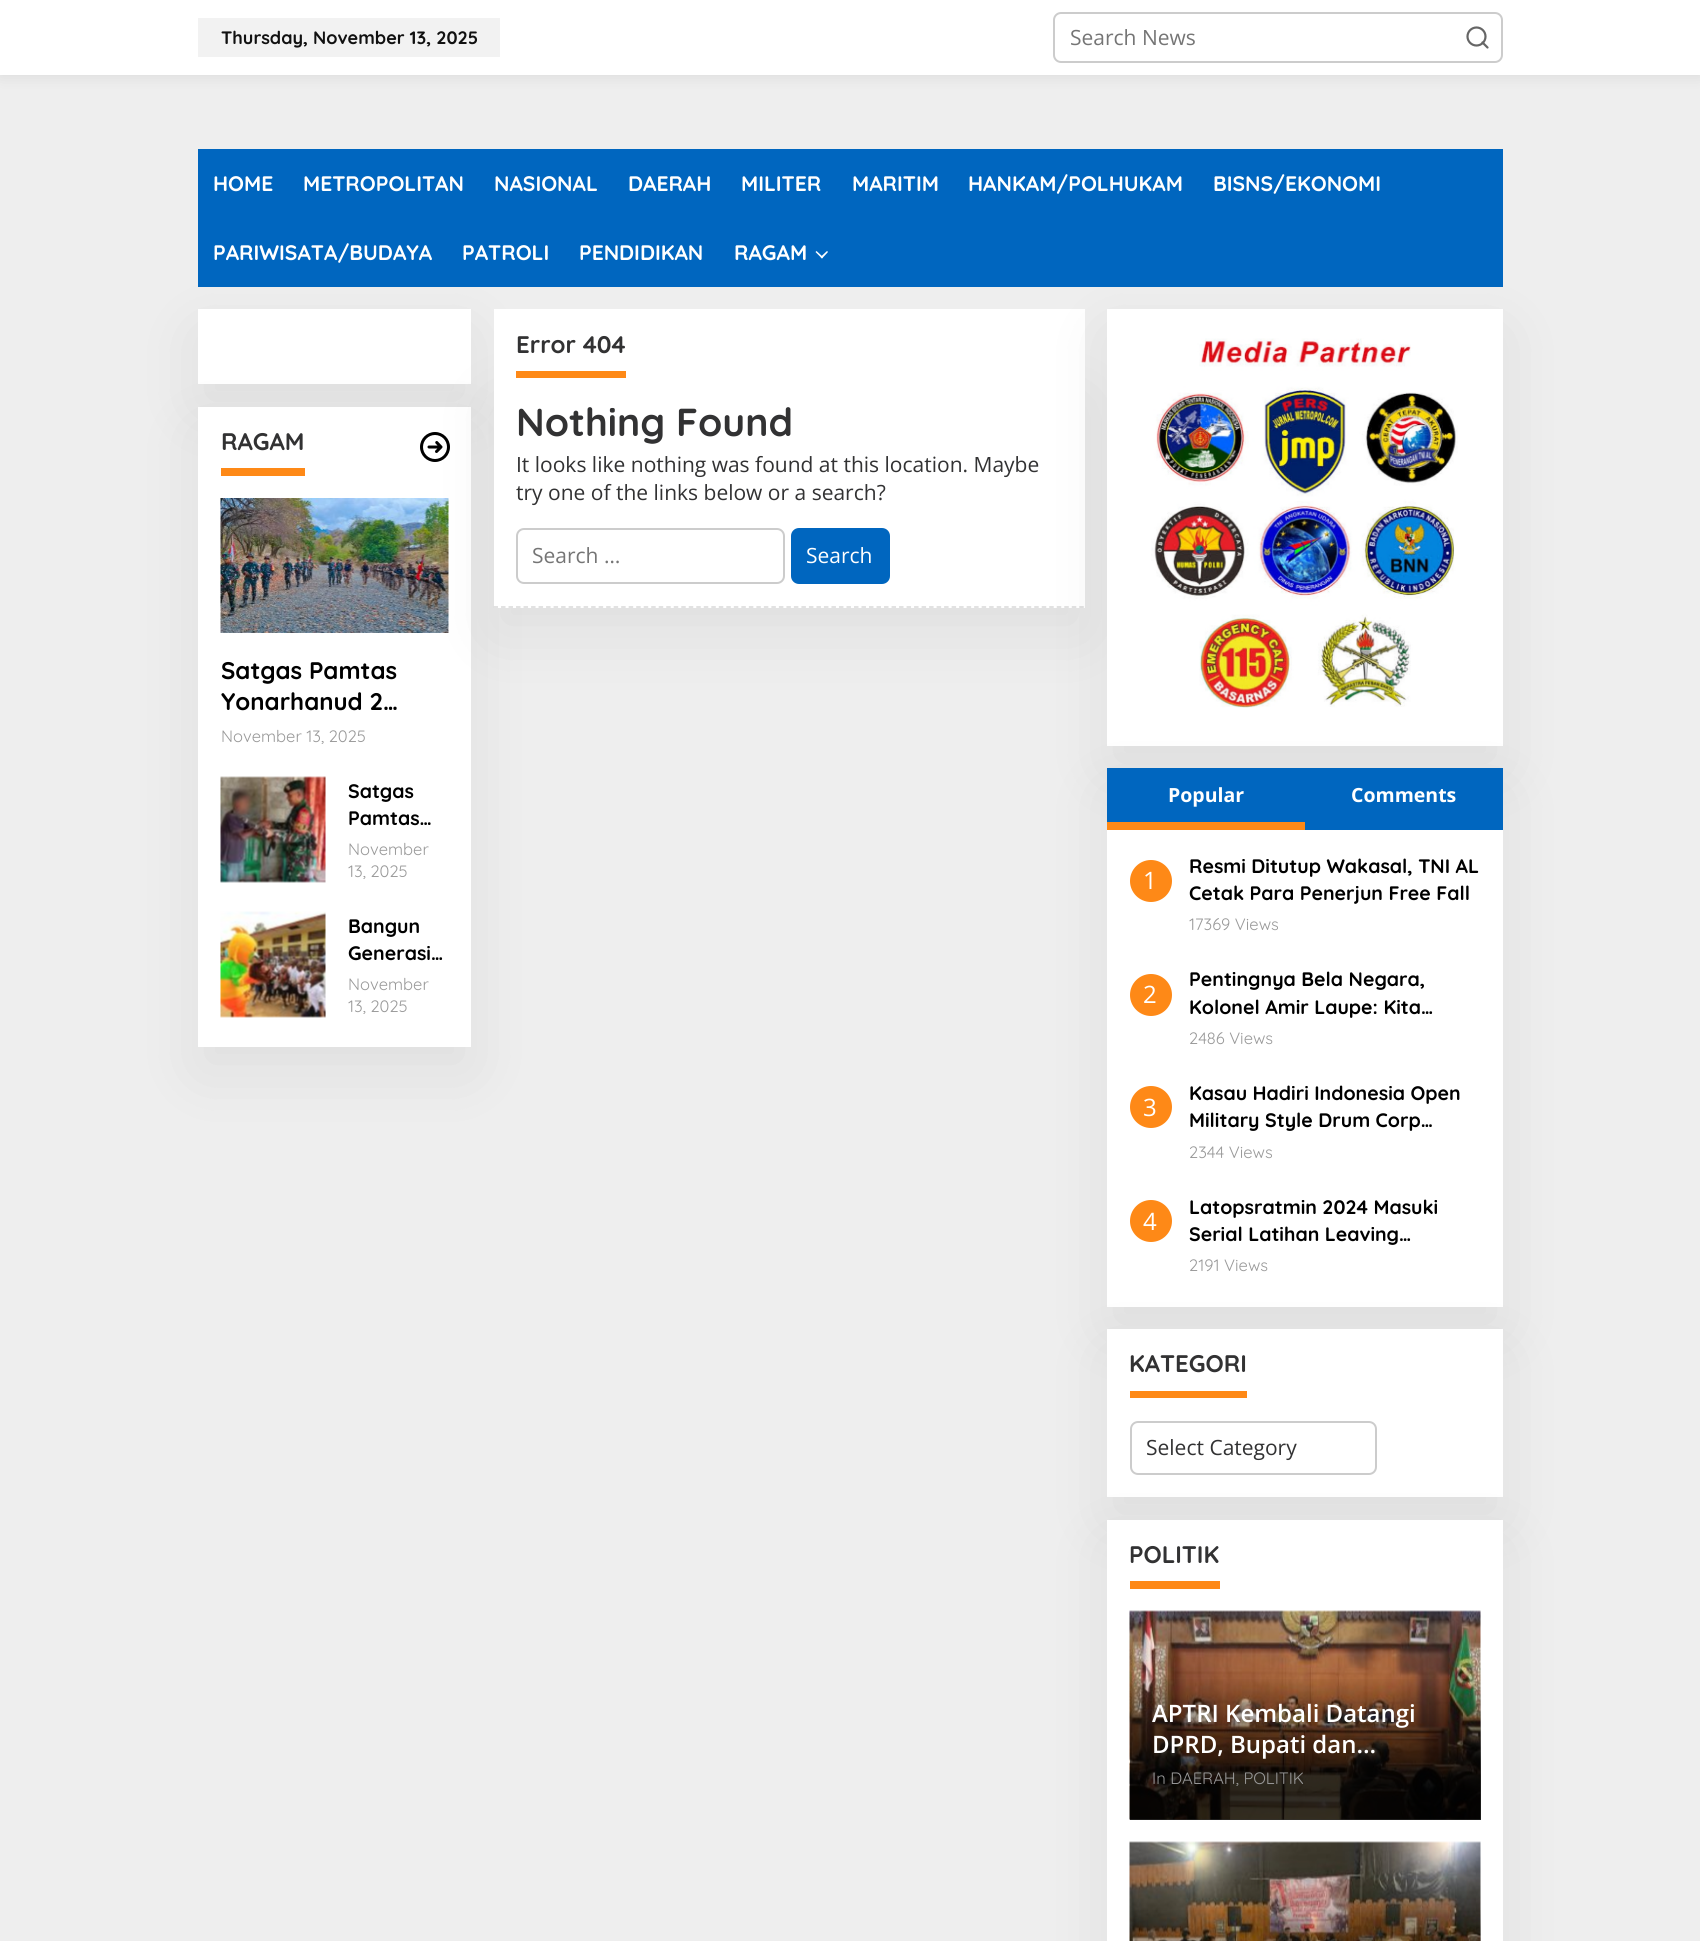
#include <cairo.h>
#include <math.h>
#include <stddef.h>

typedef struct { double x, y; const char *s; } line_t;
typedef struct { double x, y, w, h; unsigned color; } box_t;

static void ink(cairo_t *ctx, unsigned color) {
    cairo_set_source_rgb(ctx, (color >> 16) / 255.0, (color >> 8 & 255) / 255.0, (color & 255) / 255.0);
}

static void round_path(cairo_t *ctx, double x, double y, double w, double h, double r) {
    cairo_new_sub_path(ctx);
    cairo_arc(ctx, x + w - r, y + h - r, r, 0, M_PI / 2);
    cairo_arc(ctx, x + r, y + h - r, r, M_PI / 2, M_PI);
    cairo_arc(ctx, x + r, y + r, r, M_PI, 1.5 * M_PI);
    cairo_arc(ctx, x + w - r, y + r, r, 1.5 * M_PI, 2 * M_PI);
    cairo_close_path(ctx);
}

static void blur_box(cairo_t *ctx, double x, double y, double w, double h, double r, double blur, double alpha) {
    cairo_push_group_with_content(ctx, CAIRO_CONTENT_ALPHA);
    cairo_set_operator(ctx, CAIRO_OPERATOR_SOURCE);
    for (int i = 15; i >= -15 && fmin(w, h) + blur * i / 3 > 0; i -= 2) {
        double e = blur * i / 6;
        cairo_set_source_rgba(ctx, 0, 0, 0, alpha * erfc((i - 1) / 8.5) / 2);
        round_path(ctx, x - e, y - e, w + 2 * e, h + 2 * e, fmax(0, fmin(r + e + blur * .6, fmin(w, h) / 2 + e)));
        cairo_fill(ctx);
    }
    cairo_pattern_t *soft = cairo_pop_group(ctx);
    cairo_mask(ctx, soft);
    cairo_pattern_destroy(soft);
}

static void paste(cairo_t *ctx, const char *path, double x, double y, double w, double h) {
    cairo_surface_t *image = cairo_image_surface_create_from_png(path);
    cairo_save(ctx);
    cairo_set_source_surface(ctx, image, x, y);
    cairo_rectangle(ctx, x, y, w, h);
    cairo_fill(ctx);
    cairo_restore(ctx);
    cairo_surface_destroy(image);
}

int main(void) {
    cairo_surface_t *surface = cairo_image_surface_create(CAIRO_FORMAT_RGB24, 1700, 1941);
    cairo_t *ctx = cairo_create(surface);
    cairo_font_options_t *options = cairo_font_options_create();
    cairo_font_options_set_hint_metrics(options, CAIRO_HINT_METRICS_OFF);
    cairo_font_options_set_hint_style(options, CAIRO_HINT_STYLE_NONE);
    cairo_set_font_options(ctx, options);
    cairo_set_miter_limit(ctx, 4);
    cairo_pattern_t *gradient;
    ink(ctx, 0xEEEEEE);
    cairo_paint(ctx);
    ink(ctx, 0x000000);
    blur_box(ctx, 0, 0, 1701, 75, 0, 7.5, 0.1);
    ink(ctx, 0xFFFFFF);
    cairo_rectangle(ctx, 0, 0, 1700, 75);
    cairo_fill(ctx);
    ink(ctx, 0xF2F2F2);
    cairo_rectangle(ctx, 198, 18, 302, 39);
    cairo_fill(ctx);
    cairo_select_font_face(ctx, "Quicksand", CAIRO_FONT_SLANT_NORMAL, CAIRO_FONT_WEIGHT_BOLD);
    cairo_set_font_size(ctx, 18);
    ink(ctx, 0x111111);
    cairo_move_to(ctx, 221, 44);
    cairo_show_text(ctx, "Thursday, November 13, 2025");
    round_path(ctx, 1054, 13, 448, 49, 7);
    ink(ctx, 0xCCCCCC);
    cairo_stroke(ctx);
    cairo_select_font_face(ctx, "Open Sans", CAIRO_FONT_SLANT_NORMAL, CAIRO_FONT_WEIGHT_NORMAL);
    cairo_set_font_size(ctx, 21);
    ink(ctx, 0x757575);
    cairo_move_to(ctx, 1070, 45);
    cairo_show_text(ctx, "Search News");
    cairo_new_path(ctx);
    cairo_arc(ctx, 1476.5, 36.5, 9, 0, 2 * M_PI);
    ink(ctx, 0x666666);
    cairo_set_line_width(ctx, 2.2);
    cairo_stroke(ctx);
    cairo_new_path(ctx);
    cairo_move_to(ctx, 1487.5, 47.5);
    cairo_line_to(ctx, 1482.5, 42.5);
    cairo_set_line_cap(ctx, CAIRO_LINE_CAP_ROUND);
    cairo_set_line_join(ctx, CAIRO_LINE_JOIN_ROUND);
    cairo_stroke(ctx);
    ink(ctx, 0x0066BF);
    cairo_rectangle(ctx, 198, 149, 1305, 138);
    cairo_fill(ctx);
    cairo_select_font_face(ctx, "Quicksand", CAIRO_FONT_SLANT_NORMAL, CAIRO_FONT_WEIGHT_BOLD);
    ink(ctx, 0xFFFFFF);
    {
        static const line_t items[] = {
            {213, 191, "HOME"},
            {303, 191, "METROPOLITAN"},
            {494, 191, "NASIONAL"},
            {628, 191, "DAERAH"},
            {741, 191, "MILITER"},
            {852, 191, "MARITIM"},
            {968, 191, "HANKAM/POLHUKAM"},
            {1213, 191, "BISNS/EKONOMI"},
            {213, 260, "PARIWISATA/BUDAYA"},
            {462, 260, "PATROLI"},
            {579, 260, "PENDIDIKAN"},
            {734, 260, "RAGAM"},
        };
        for (size_t i = 0; i < sizeof items / sizeof *items; i++) {
            cairo_move_to(ctx, items[i].x, items[i].y);
            cairo_show_text(ctx, items[i].s);
        }
    }
    cairo_new_path(ctx);
    cairo_move_to(ctx, 827, 251);
    cairo_line_to(ctx, 828, 252);
    cairo_line_to(ctx, 822, 258.5);
    cairo_line_to(ctx, 820.5, 257);
    cairo_close_path(ctx);
    cairo_fill(ctx);
    cairo_new_path(ctx);
    cairo_move_to(ctx, 816.5, 251);
    cairo_line_to(ctx, 823, 257);
    cairo_line_to(ctx, 822, 258.5);
    cairo_line_to(ctx, 815.5, 252);
    cairo_close_path(ctx);
    cairo_fill(ctx);
    ink(ctx, 0x000000);
    blur_box(ctx, 198, 333, 273, 75, 0, 34, 0.07);
    ink(ctx, 0xFFFFFF);
    cairo_rectangle(ctx, 198, 309, 273, 75);
    cairo_fill(ctx);
    ink(ctx, 0x000000);
    blur_box(ctx, 198, 431, 273, 640, 0, 34, 0.07);
    ink(ctx, 0xFFFFFF);
    cairo_rectangle(ctx, 198, 407, 273, 640);
    cairo_fill(ctx);
    ink(ctx, 0xFE8917);
    cairo_rectangle(ctx, 221, 468, 84, 8);
    cairo_fill(ctx);
    cairo_set_font_size(ctx, 24);
    ink(ctx, 0x323233);
    cairo_move_to(ctx, 221, 450);
    cairo_show_text(ctx, "RAGAM");
    paste(ctx, "media/1.png", 420, 432, 30, 30);
    paste(ctx, "media/2.png", 220, 498, 229, 135);
    ink(ctx, 0x000000);
    cairo_move_to(ctx, 221, 679);
    cairo_show_text(ctx, "Satgas Pamtas");
    cairo_move_to(ctx, 221, 710);
    cairo_show_text(ctx, "Yonarhanud 2…");
    cairo_select_font_face(ctx, "Quicksand", CAIRO_FONT_SLANT_NORMAL, CAIRO_FONT_WEIGHT_NORMAL);
    cairo_set_font_size(ctx, 16.5);
    ink(ctx, 0x999999);
    cairo_move_to(ctx, 221, 742);
    cairo_show_text(ctx, "November 13, 2025");
    paste(ctx, "media/3.png", 220, 776, 106, 107);
    cairo_select_font_face(ctx, "Quicksand", CAIRO_FONT_SLANT_NORMAL, CAIRO_FONT_WEIGHT_BOLD);
    cairo_set_font_size(ctx, 19.5);
    ink(ctx, 0x000000);
    cairo_move_to(ctx, 348, 798);
    cairo_show_text(ctx, "Satgas");
    cairo_move_to(ctx, 348, 825);
    cairo_show_text(ctx, "Pamtas…");
    cairo_select_font_face(ctx, "Quicksand", CAIRO_FONT_SLANT_NORMAL, CAIRO_FONT_WEIGHT_NORMAL);
    cairo_set_font_size(ctx, 16.5);
    ink(ctx, 0x999999);
    cairo_move_to(ctx, 348, 855);
    cairo_show_text(ctx, "November");
    cairo_move_to(ctx, 348, 877);
    cairo_show_text(ctx, "13, 2025");
    paste(ctx, "media/4.png", 220, 911, 106, 107);
    cairo_select_font_face(ctx, "Quicksand", CAIRO_FONT_SLANT_NORMAL, CAIRO_FONT_WEIGHT_BOLD);
    cairo_set_font_size(ctx, 19.5);
    ink(ctx, 0x000000);
    cairo_move_to(ctx, 348, 933);
    cairo_show_text(ctx, "Bangun");
    cairo_move_to(ctx, 348, 960);
    cairo_show_text(ctx, "Generasi…");
    cairo_select_font_face(ctx, "Quicksand", CAIRO_FONT_SLANT_NORMAL, CAIRO_FONT_WEIGHT_NORMAL);
    cairo_set_font_size(ctx, 16.5);
    ink(ctx, 0x999999);
    cairo_move_to(ctx, 348, 990);
    cairo_show_text(ctx, "November");
    cairo_move_to(ctx, 348, 1012);
    cairo_show_text(ctx, "13, 2025");
    ink(ctx, 0x000000);
    blur_box(ctx, 494, 402, 591, 230, 0, 34, 0.07);
    ink(ctx, 0xFFFFFF);
    cairo_rectangle(ctx, 494, 309, 591, 299);
    cairo_fill(ctx);
    ink(ctx, 0xFE8917);
    cairo_rectangle(ctx, 516, 371, 110, 7);
    cairo_fill(ctx);
    cairo_select_font_face(ctx, "Quicksand", CAIRO_FONT_SLANT_NORMAL, CAIRO_FONT_WEIGHT_BOLD);
    cairo_set_font_size(ctx, 24);
    ink(ctx, 0x323233);
    cairo_move_to(ctx, 516, 353);
    cairo_show_text(ctx, "Error 404");
    cairo_new_path(ctx);
    cairo_move_to(ctx, 493.5, 607);
    cairo_line_to(ctx, 1084.5, 607);
    ink(ctx, 0xD9D9D9);
    cairo_set_line_width(ctx, 1.5);
    cairo_set_line_cap(ctx, CAIRO_LINE_CAP_BUTT);
    cairo_set_line_join(ctx, CAIRO_LINE_JOIN_MITER);
    cairo_set_dash(ctx, (double[]){4.5, 3.01}, 2, 0);
    cairo_stroke(ctx);
    cairo_set_font_size(ctx, 39);
    ink(ctx, 0x323233);
    cairo_move_to(ctx, 516, 436);
    cairo_show_text(ctx, "Nothing Found");
    cairo_select_font_face(ctx, "Open Sans", CAIRO_FONT_SLANT_NORMAL, CAIRO_FONT_WEIGHT_NORMAL);
    cairo_set_font_size(ctx, 21);
    cairo_move_to(ctx, 516, 472);
    cairo_show_text(ctx, "It looks like nothing was found at this location. Maybe");
    cairo_move_to(ctx, 516, 500);
    cairo_show_text(ctx, "try one of the links below or a search?");
    round_path(ctx, 517, 529, 267, 54, 7);
    ink(ctx, 0xCCCCCC);
    cairo_set_line_width(ctx, 2);
    cairo_set_dash(ctx, NULL, 0, 0);
    cairo_stroke(ctx);
    ink(ctx, 0x757575);
    cairo_move_to(ctx, 532, 563);
    cairo_show_text(ctx, "Search …");
    ink(ctx, 0x0066BF);
    round_path(ctx, 792, 529, 97, 54, 7);
    cairo_fill_preserve(ctx);
    cairo_stroke(ctx);
    ink(ctx, 0xFFFFFF);
    cairo_move_to(ctx, 806, 563);
    cairo_show_text(ctx, "Search");
    ink(ctx, 0x000000);
    blur_box(ctx, 1107, 333, 396, 437, 0, 34, 0.07);
    ink(ctx, 0xFFFFFF);
    cairo_rectangle(ctx, 1107, 309, 396, 437);
    cairo_fill(ctx);
    ink(ctx, 0x000000);
    blur_box(ctx, 1107, 792, 396, 539, 0, 34, 0.07);
    paste(ctx, "media/5.png", 1151, 338, 307, 370);
    {
        static const box_t items[] = {
            {1107, 830, 396, 477, 0xFFFFFF},
            {1107, 768, 396, 62, 0x0066BF},
            {1107, 822, 198, 8, 0xFE8917},
        };
        for (size_t i = 0; i < sizeof items / sizeof *items; i++) {
            ink(ctx, items[i].color);
            cairo_rectangle(ctx, items[i].x, items[i].y, items[i].w, items[i].h);
            cairo_fill(ctx);
        }
    }
    cairo_select_font_face(ctx, "Open Sans", CAIRO_FONT_SLANT_NORMAL, CAIRO_FONT_WEIGHT_BOLD);
    cairo_set_font_size(ctx, 19.5);
    ink(ctx, 0xFFFFFF);
    cairo_move_to(ctx, 1168, 802);
    cairo_show_text(ctx, "Popular");
    cairo_move_to(ctx, 1351, 802);
    cairo_show_text(ctx, "Comments");
    ink(ctx, 0xFE8917);
    cairo_new_path(ctx);
    cairo_arc(ctx, 1151, 881, 21, 0, 2 * M_PI);
    cairo_fill(ctx);
    cairo_select_font_face(ctx, "Open Sans", CAIRO_FONT_SLANT_NORMAL, CAIRO_FONT_WEIGHT_NORMAL);
    cairo_set_font_size(ctx, 24);
    ink(ctx, 0xFFFFFF);
    cairo_move_to(ctx, 1143, 889);
    cairo_show_text(ctx, "1");
    cairo_select_font_face(ctx, "Quicksand", CAIRO_FONT_SLANT_NORMAL, CAIRO_FONT_WEIGHT_BOLD);
    cairo_set_font_size(ctx, 19.5);
    ink(ctx, 0x000000);
    cairo_move_to(ctx, 1189, 873);
    cairo_show_text(ctx, "Resmi Ditutup Wakasal, TNI AL");
    cairo_move_to(ctx, 1189, 900);
    cairo_show_text(ctx, "Cetak Para Penerjun Free Fall");
    cairo_select_font_face(ctx, "Quicksand", CAIRO_FONT_SLANT_NORMAL, CAIRO_FONT_WEIGHT_NORMAL);
    cairo_set_font_size(ctx, 16.5);
    ink(ctx, 0x999999);
    cairo_move_to(ctx, 1189, 930);
    cairo_show_text(ctx, "17369 Views");
    ink(ctx, 0xFE8917);
    cairo_new_path(ctx);
    cairo_arc(ctx, 1151, 995, 21, 0, 2 * M_PI);
    cairo_fill(ctx);
    cairo_select_font_face(ctx, "Open Sans", CAIRO_FONT_SLANT_NORMAL, CAIRO_FONT_WEIGHT_NORMAL);
    cairo_set_font_size(ctx, 24);
    ink(ctx, 0xFFFFFF);
    cairo_move_to(ctx, 1143, 1003);
    cairo_show_text(ctx, "2");
    cairo_select_font_face(ctx, "Quicksand", CAIRO_FONT_SLANT_NORMAL, CAIRO_FONT_WEIGHT_BOLD);
    cairo_set_font_size(ctx, 19.5);
    ink(ctx, 0x000000);
    cairo_move_to(ctx, 1189, 986);
    cairo_show_text(ctx, "Pentingnya Bela Negara,");
    cairo_move_to(ctx, 1189, 1014);
    cairo_show_text(ctx, "Kolonel Amir Laupe: Kita…");
    cairo_select_font_face(ctx, "Quicksand", CAIRO_FONT_SLANT_NORMAL, CAIRO_FONT_WEIGHT_NORMAL);
    cairo_set_font_size(ctx, 16.5);
    ink(ctx, 0x999999);
    cairo_move_to(ctx, 1189, 1044);
    cairo_show_text(ctx, "2486 Views");
    ink(ctx, 0xFE8917);
    cairo_new_path(ctx);
    cairo_arc(ctx, 1151, 1107, 21, 0, 2 * M_PI);
    cairo_fill(ctx);
    cairo_select_font_face(ctx, "Open Sans", CAIRO_FONT_SLANT_NORMAL, CAIRO_FONT_WEIGHT_NORMAL);
    cairo_set_font_size(ctx, 24);
    ink(ctx, 0xFFFFFF);
    cairo_move_to(ctx, 1143, 1116);
    cairo_show_text(ctx, "3");
    cairo_select_font_face(ctx, "Quicksand", CAIRO_FONT_SLANT_NORMAL, CAIRO_FONT_WEIGHT_BOLD);
    cairo_set_font_size(ctx, 19.5);
    ink(ctx, 0x000000);
    cairo_move_to(ctx, 1189, 1100);
    cairo_show_text(ctx, "Kasau Hadiri Indonesia Open");
    cairo_move_to(ctx, 1189, 1127);
    cairo_show_text(ctx, "Military Style Drum Corp…");
    cairo_select_font_face(ctx, "Quicksand", CAIRO_FONT_SLANT_NORMAL, CAIRO_FONT_WEIGHT_NORMAL);
    cairo_set_font_size(ctx, 16.5);
    ink(ctx, 0x999999);
    cairo_move_to(ctx, 1189, 1158);
    cairo_show_text(ctx, "2344 Views");
    ink(ctx, 0xFE8917);
    cairo_new_path(ctx);
    cairo_arc(ctx, 1151, 1221, 21, 0, 2 * M_PI);
    cairo_fill(ctx);
    cairo_select_font_face(ctx, "Open Sans", CAIRO_FONT_SLANT_NORMAL, CAIRO_FONT_WEIGHT_NORMAL);
    cairo_set_font_size(ctx, 24);
    ink(ctx, 0xFFFFFF);
    cairo_move_to(ctx, 1143, 1230);
    cairo_show_text(ctx, "4");
    cairo_select_font_face(ctx, "Quicksand", CAIRO_FONT_SLANT_NORMAL, CAIRO_FONT_WEIGHT_BOLD);
    cairo_set_font_size(ctx, 19.5);
    ink(ctx, 0x000000);
    cairo_move_to(ctx, 1189, 1214);
    cairo_show_text(ctx, "Latopsratmin 2024 Masuki");
    cairo_move_to(ctx, 1189, 1241);
    cairo_show_text(ctx, "Serial Latihan Leaving…");
    ink(ctx, 0x000000);
    blur_box(ctx, 1107, 1353, 396, 168, 0, 34, 0.07);
    cairo_select_font_face(ctx, "Quicksand", CAIRO_FONT_SLANT_NORMAL, CAIRO_FONT_WEIGHT_NORMAL);
    cairo_set_font_size(ctx, 16.5);
    ink(ctx, 0x999999);
    cairo_move_to(ctx, 1189, 1271);
    cairo_show_text(ctx, "2191 Views");
    ink(ctx, 0xFFFFFF);
    cairo_rectangle(ctx, 1107, 1329, 396, 168);
    cairo_fill(ctx);
    ink(ctx, 0xFE8917);
    cairo_rectangle(ctx, 1130, 1391, 117, 7);
    cairo_fill(ctx);
    cairo_select_font_face(ctx, "Quicksand", CAIRO_FONT_SLANT_NORMAL, CAIRO_FONT_WEIGHT_BOLD);
    cairo_set_font_size(ctx, 24);
    ink(ctx, 0x323233);
    cairo_move_to(ctx, 1129, 1372);
    cairo_show_text(ctx, "KATEGORI");
    ink(ctx, 0x000000);
    blur_box(ctx, 1107, 1544, 396, 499, 0, 34, 0.07);
    round_path(ctx, 1131, 1422, 245, 52, 7);
    ink(ctx, 0xCCCCCC);
    cairo_stroke(ctx);
    cairo_select_font_face(ctx, "Open Sans", CAIRO_FONT_SLANT_NORMAL, CAIRO_FONT_WEIGHT_NORMAL);
    cairo_set_font_size(ctx, 21);
    ink(ctx, 0x323233);
    cairo_move_to(ctx, 1146, 1455);
    cairo_show_text(ctx, "Select Category");
    ink(ctx, 0xFFFFFF);
    cairo_rectangle(ctx, 1107, 1520, 396, 421);
    cairo_fill(ctx);
    ink(ctx, 0xFE8917);
    cairo_rectangle(ctx, 1130, 1581, 90, 8);
    cairo_fill(ctx);
    cairo_select_font_face(ctx, "Quicksand", CAIRO_FONT_SLANT_NORMAL, CAIRO_FONT_WEIGHT_BOLD);
    cairo_set_font_size(ctx, 24);
    ink(ctx, 0x323233);
    cairo_move_to(ctx, 1129, 1563);
    cairo_show_text(ctx, "POLITIK");
    paste(ctx, "media/6.png", 1129, 1610, 352, 210);
    gradient = cairo_pattern_create_linear(1305, 1676, 1305, 1820);
    cairo_pattern_add_color_stop_rgba(gradient, 0, 0, 0, 0, 0);
    cairo_pattern_add_color_stop_rgba(gradient, 0.7, 0, 0, 0, 0.8);
    cairo_set_source(ctx, gradient);
    cairo_pattern_destroy(gradient);
    cairo_rectangle(ctx, 1130, 1679, 351, 141);
    cairo_fill(ctx);
    cairo_select_font_face(ctx, "Open Sans SemiBold", CAIRO_FONT_SLANT_NORMAL, CAIRO_FONT_WEIGHT_NORMAL);
    ink(ctx, 0xFFFFFF);
    cairo_move_to(ctx, 1152, 1722);
    cairo_show_text(ctx, "APTRI Kembali Datangi");
    cairo_move_to(ctx, 1152, 1753);
    cairo_show_text(ctx, "DPRD, Bupati dan…");
    cairo_select_font_face(ctx, "Quicksand", CAIRO_FONT_SLANT_NORMAL, CAIRO_FONT_WEIGHT_NORMAL);
    cairo_set_font_size(ctx, 16.5);
    ink(ctx, 0x999999);
    cairo_move_to(ctx, 1152, 1784);
    cairo_show_text(ctx, "In DAERAH, POLITIK");
    paste(ctx, "media/7.png", 1129, 1841, 352, 100);
    gradient = cairo_pattern_create_linear(1305, 1907, 1305, 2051);
    cairo_pattern_add_color_stop_rgba(gradient, 0, 0, 0, 0, 0);
    cairo_pattern_add_color_stop_rgba(gradient, 0.7, 0, 0, 0, 0.8);
    cairo_set_source(ctx, gradient);
    cairo_pattern_destroy(gradient);
    cairo_rectangle(ctx, 1130, 1910, 351, 31);
    cairo_fill(ctx);
    cairo_surface_write_to_png(surface, "image.png");
    cairo_font_options_destroy(options);
    cairo_destroy(ctx);
    cairo_surface_destroy(surface);
    return 0;
}
